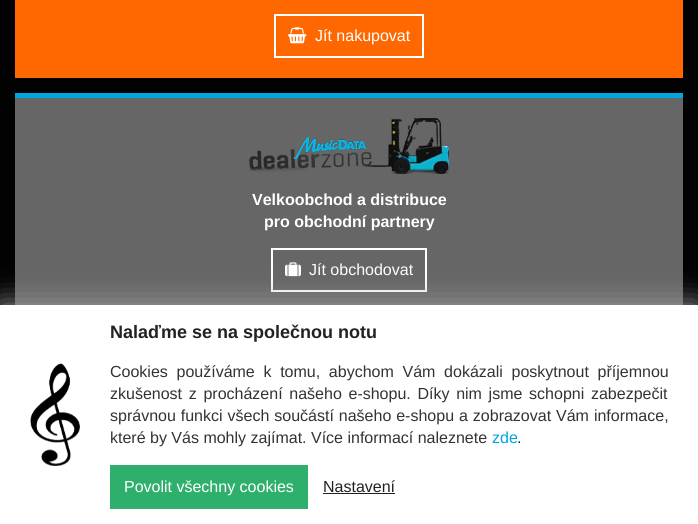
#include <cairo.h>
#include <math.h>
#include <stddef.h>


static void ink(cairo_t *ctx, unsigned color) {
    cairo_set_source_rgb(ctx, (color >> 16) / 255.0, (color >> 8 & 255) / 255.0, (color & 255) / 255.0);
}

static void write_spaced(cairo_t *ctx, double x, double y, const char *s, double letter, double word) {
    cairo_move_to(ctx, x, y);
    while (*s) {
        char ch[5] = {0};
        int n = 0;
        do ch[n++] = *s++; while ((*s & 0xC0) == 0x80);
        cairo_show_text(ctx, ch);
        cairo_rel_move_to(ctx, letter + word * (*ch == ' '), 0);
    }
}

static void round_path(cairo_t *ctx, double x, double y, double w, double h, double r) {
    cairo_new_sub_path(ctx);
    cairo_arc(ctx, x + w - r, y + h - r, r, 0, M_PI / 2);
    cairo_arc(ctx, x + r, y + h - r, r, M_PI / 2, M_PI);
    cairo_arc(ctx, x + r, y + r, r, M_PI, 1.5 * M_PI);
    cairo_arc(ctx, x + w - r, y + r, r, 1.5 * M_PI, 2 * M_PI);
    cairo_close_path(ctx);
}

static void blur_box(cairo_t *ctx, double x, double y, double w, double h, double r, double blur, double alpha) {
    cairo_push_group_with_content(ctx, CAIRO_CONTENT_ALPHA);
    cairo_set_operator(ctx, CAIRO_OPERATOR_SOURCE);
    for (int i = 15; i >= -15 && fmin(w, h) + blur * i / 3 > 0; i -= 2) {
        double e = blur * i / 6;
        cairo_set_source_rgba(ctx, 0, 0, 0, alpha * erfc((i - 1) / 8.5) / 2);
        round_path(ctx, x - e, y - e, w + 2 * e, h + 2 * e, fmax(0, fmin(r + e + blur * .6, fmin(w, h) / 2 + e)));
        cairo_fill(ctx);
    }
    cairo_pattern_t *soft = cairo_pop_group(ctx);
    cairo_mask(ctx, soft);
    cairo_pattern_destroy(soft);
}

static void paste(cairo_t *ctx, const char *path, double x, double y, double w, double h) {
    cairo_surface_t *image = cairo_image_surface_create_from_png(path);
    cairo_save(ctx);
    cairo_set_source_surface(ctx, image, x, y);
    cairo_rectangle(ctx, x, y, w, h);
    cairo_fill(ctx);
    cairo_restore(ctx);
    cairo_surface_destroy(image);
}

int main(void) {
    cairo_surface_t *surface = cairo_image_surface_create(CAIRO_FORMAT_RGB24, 698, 524);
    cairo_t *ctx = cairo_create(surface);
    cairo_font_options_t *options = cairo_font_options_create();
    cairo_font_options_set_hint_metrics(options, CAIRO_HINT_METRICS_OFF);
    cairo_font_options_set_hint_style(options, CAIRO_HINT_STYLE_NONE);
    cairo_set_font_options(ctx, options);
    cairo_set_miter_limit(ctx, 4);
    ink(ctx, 0x020202);
    cairo_paint(ctx);
    ink(ctx, 0xFF6800);
    cairo_rectangle(ctx, 15, 0, 668, 78);
    cairo_fill(ctx);
    cairo_rectangle(ctx, 275, 15, 148, 42);
    ink(ctx, 0xFFFFFF);
    cairo_stroke(ctx);
    paste(ctx, "media/1.png", 288, 27, 19, 17);
    cairo_select_font_face(ctx, "Arimo", CAIRO_FONT_SLANT_NORMAL, CAIRO_FONT_WEIGHT_NORMAL);
    cairo_set_font_size(ctx, 16);
    cairo_move_to(ctx, 315, 41);
    cairo_show_text(ctx, "Jít nakupovat");
    ink(ctx, 0x666666);
    cairo_rectangle(ctx, 15, 98, 668, 207);
    cairo_fill(ctx);
    ink(ctx, 0x00A6DF);
    cairo_rectangle(ctx, 15, 93, 668, 5);
    cairo_fill(ctx);
    paste(ctx, "media/2.png", 249, 118, 200, 56);
    cairo_select_font_face(ctx, "Arimo", CAIRO_FONT_SLANT_NORMAL, CAIRO_FONT_WEIGHT_BOLD);
    ink(ctx, 0xFFFFFF);
    cairo_move_to(ctx, 252, 205);
    cairo_show_text(ctx, "Velkoobchod a distribuce");
    cairo_move_to(ctx, 264, 227);
    cairo_show_text(ctx, "pro obchodní partnery");
    cairo_rectangle(ctx, 272, 249, 154, 42);
    cairo_stroke(ctx);
    paste(ctx, "media/3.png", 285, 262, 16, 15);
    cairo_select_font_face(ctx, "Arimo", CAIRO_FONT_SLANT_NORMAL, CAIRO_FONT_WEIGHT_NORMAL);
    cairo_move_to(ctx, 309, 275);
    cairo_show_text(ctx, "Jít obchodovat");
    ink(ctx, 0x9E9E9E);
    blur_box(ctx, 0, 305, 698, 219, 0, 15, 1);
    ink(ctx, 0xFFFFFF);
    cairo_rectangle(ctx, 0, 305, 698, 219);
    cairo_fill(ctx);
    paste(ctx, "media/4.png", 30, 363, 50, 103);
    cairo_select_font_face(ctx, "Arimo", CAIRO_FONT_SLANT_NORMAL, CAIRO_FONT_WEIGHT_BOLD);
    cairo_set_font_size(ctx, 18);
    ink(ctx, 0x222222);
    cairo_move_to(ctx, 110, 338);
    cairo_show_text(ctx, "Nalaďme se na společnou notu");
    cairo_select_font_face(ctx, "Arimo", CAIRO_FONT_SLANT_NORMAL, CAIRO_FONT_WEIGHT_NORMAL);
    cairo_set_font_size(ctx, 16);
    ink(ctx, 0x333333);
    write_spaced(ctx, 110, 377, "Cookies používáme k tomu, abychom Vám dokázali poskytnout příjemnou", 0, 4.25);
    write_spaced(ctx, 110, 399, "zkušenost z procházení našeho e-shopu. Díky nim jsme schopni zabezpečit", 0, 2.25);
    write_spaced(ctx, 110, 421, "správnou funkci všech součástí našeho e-shopu a zobrazovat Vám informace,", 0, 0.5);
    cairo_move_to(ctx, 110, 443);
    cairo_show_text(ctx, "které by Vás mohly zajímat. Více informací naleznete");
    ink(ctx, 0x00A6DF);
    cairo_move_to(ctx, 492, 443);
    cairo_show_text(ctx, "zde");
    ink(ctx, 0x333333);
    cairo_move_to(ctx, 517, 443);
    cairo_show_text(ctx, ".");
    ink(ctx, 0x2FAF6C);
    cairo_rectangle(ctx, 110, 465, 198, 44);
    cairo_fill(ctx);
    ink(ctx, 0xFFFFFF);
    cairo_move_to(ctx, 124, 492);
    cairo_show_text(ctx, "Povolit všechny cookies");
    ink(ctx, 0x222222);
    cairo_move_to(ctx, 323, 492);
    cairo_show_text(ctx, "Nastavení");
    cairo_rectangle(ctx, 323, 493, 72, 1);
    cairo_fill(ctx);
    cairo_surface_write_to_png(surface, "image.png");
    cairo_font_options_destroy(options);
    cairo_destroy(ctx);
    cairo_surface_destroy(surface);
    return 0;
}
